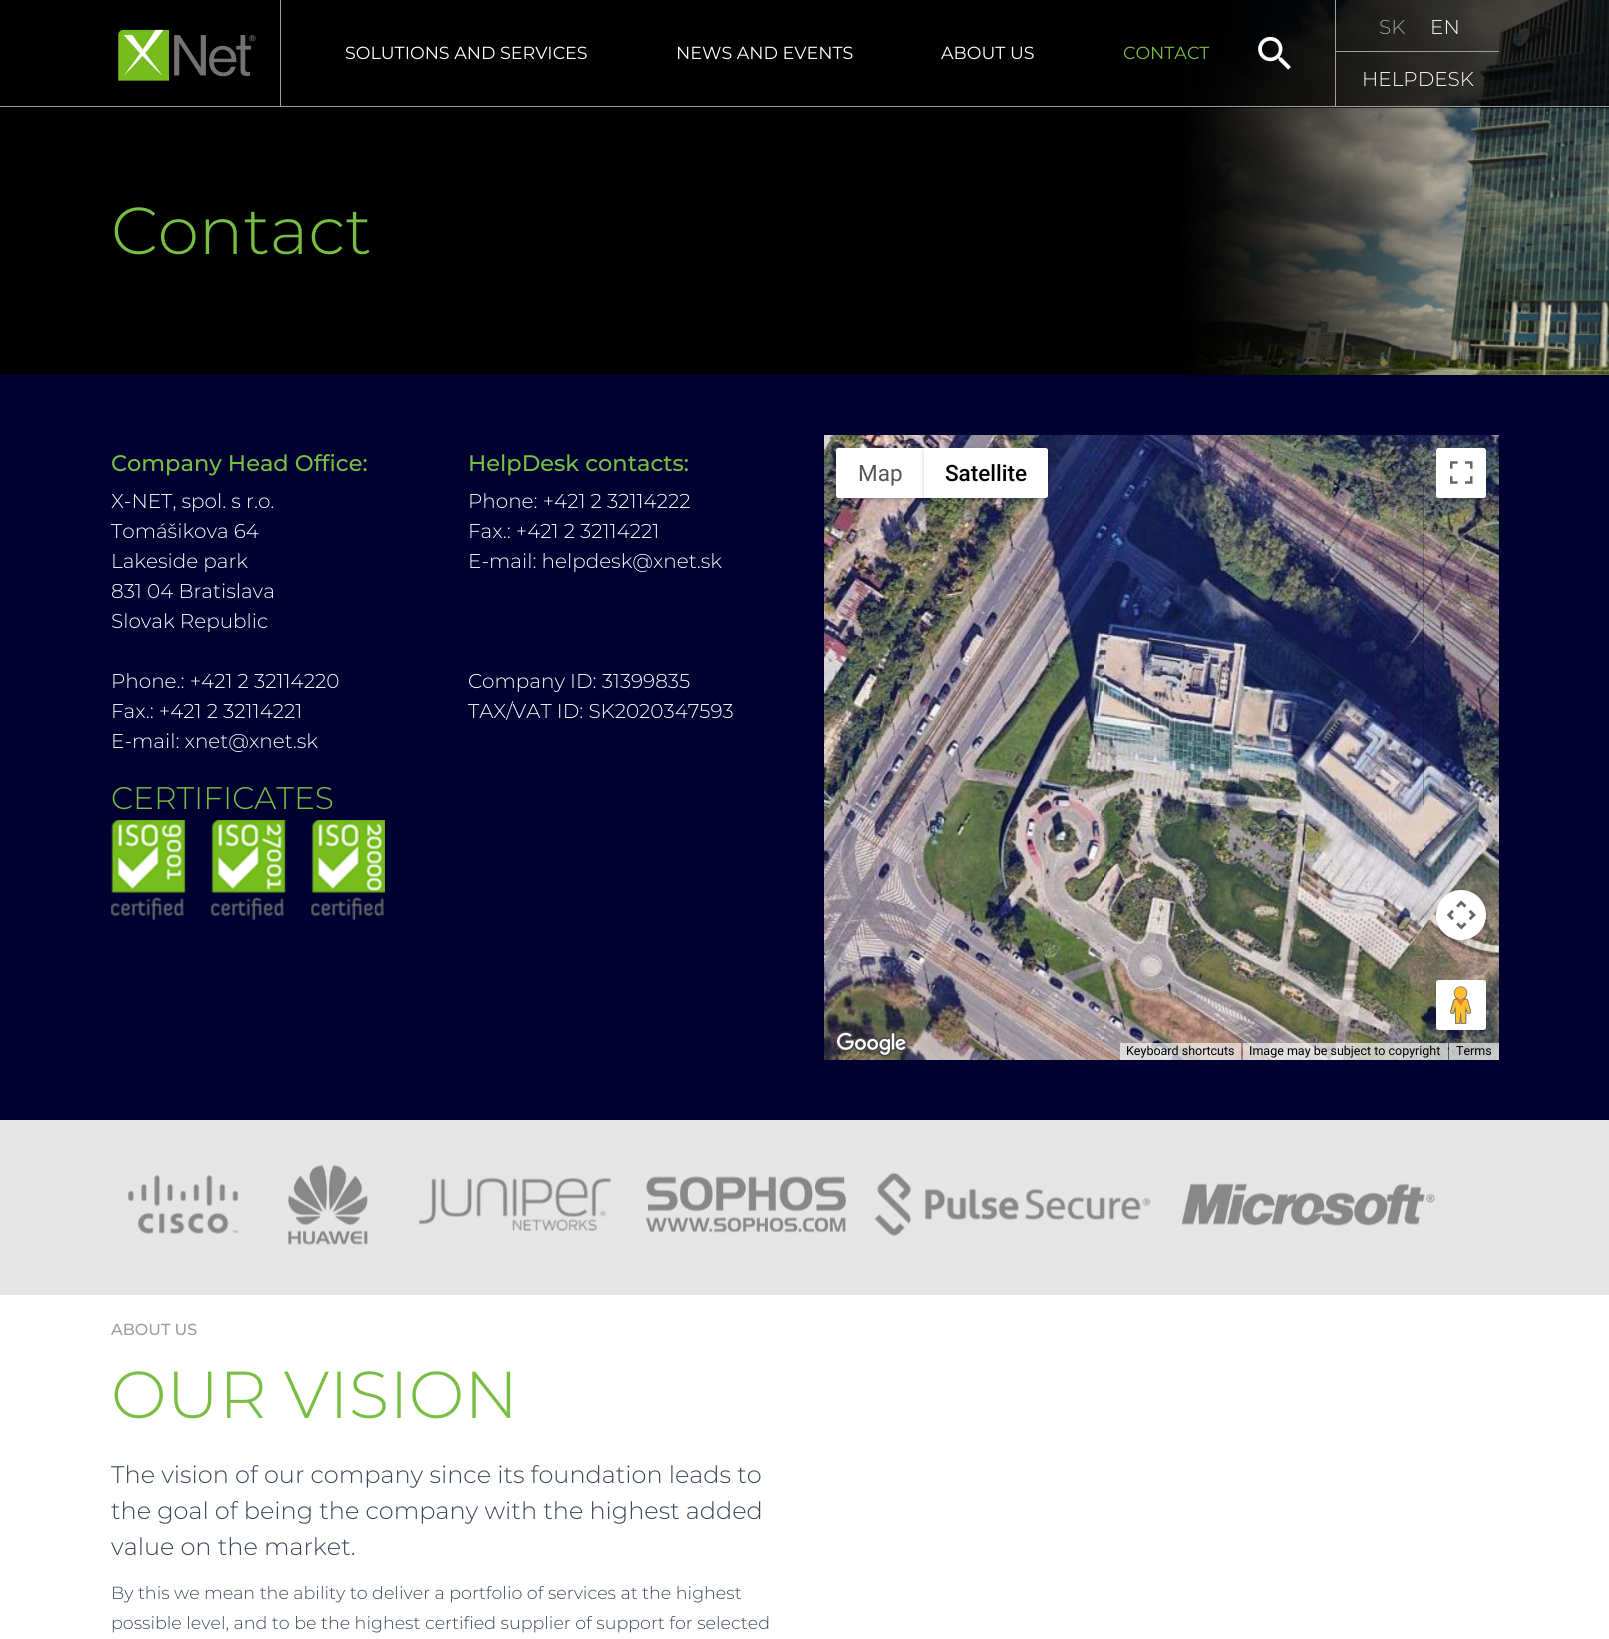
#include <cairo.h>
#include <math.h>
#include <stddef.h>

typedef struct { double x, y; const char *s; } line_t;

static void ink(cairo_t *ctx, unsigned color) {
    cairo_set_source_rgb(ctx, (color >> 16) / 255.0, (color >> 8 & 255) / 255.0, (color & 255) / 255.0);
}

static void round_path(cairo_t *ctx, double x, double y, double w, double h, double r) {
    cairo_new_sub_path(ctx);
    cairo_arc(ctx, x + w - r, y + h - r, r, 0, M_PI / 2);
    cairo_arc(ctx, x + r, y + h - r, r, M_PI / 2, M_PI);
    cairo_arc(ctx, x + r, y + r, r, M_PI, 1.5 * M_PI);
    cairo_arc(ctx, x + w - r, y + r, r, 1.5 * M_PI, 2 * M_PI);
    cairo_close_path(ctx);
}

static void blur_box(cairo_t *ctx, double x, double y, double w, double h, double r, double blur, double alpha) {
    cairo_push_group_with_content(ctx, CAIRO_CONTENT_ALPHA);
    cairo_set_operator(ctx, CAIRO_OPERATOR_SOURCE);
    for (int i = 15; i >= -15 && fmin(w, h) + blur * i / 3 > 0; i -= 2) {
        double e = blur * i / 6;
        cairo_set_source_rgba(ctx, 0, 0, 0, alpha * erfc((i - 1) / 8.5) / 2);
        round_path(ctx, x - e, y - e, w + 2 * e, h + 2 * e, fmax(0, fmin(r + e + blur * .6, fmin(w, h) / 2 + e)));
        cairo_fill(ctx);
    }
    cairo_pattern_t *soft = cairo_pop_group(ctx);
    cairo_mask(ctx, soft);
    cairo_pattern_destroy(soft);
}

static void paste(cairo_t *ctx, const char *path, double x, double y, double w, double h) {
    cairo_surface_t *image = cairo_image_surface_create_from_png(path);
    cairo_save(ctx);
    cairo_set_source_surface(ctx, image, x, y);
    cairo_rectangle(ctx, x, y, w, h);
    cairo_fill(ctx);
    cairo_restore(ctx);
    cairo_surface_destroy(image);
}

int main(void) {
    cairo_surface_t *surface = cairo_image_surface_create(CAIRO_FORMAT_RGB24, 1609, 1639);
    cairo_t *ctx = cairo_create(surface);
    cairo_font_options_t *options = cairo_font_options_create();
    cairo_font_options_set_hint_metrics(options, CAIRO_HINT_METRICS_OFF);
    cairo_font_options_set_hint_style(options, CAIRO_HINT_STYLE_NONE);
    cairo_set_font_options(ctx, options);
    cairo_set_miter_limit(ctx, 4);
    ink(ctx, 0x000031);
    cairo_paint(ctx);
    paste(ctx, "media/3.png", 0, 0, 1609, 375);
    cairo_set_source_rgba(ctx, 0, 0, 0, 0.7);
    cairo_rectangle(ctx, 1189, 0, 420, 108);
    cairo_fill(ctx);
    ink(ctx, 0x9E9E9E);
    cairo_rectangle(ctx, 0, 106, 1609, 1);
    cairo_fill(ctx);
    cairo_rectangle(ctx, 280, 0, 1, 106);
    cairo_fill(ctx);
    paste(ctx, "media/1.png", 118, 29, 138, 52);
    cairo_select_font_face(ctx, "Montserrat", CAIRO_FONT_SLANT_NORMAL, CAIRO_FONT_WEIGHT_NORMAL);
    cairo_set_font_size(ctx, 17.5);
    ink(ctx, 0xFFFFFF);
    {
        static const line_t items[] = {
            {345, 59, "SOLUTIONS AND SERVICES"},
            {676, 59, "NEWS AND EVENTS"},
            {941, 59, "ABOUT US"},
        };
        for (size_t i = 0; i < sizeof items / sizeof *items; i++) {
            cairo_move_to(ctx, items[i].x, items[i].y);
            cairo_show_text(ctx, items[i].s);
        }
    }
    ink(ctx, 0x77BE43);
    cairo_move_to(ctx, 1123, 59);
    cairo_show_text(ctx, "CONTACT");
    paste(ctx, "media/2.png", 1258, 36, 33, 34);
    ink(ctx, 0x9E9E9E);
    cairo_rectangle(ctx, 1335, 0, 1, 106);
    cairo_fill(ctx);
    cairo_rectangle(ctx, 1336, 51, 163, 1);
    cairo_fill(ctx);
    cairo_select_font_face(ctx, "Montserrat Light", CAIRO_FONT_SLANT_NORMAL, CAIRO_FONT_WEIGHT_NORMAL);
    cairo_set_font_size(ctx, 20);
    cairo_move_to(ctx, 1379, 34);
    cairo_show_text(ctx, "SK");
    ink(ctx, 0xFFFFFF);
    cairo_move_to(ctx, 1430, 34);
    cairo_show_text(ctx, "EN");
    cairo_move_to(ctx, 1362, 86);
    cairo_show_text(ctx, "HELPDESK");
    cairo_set_font_size(ctx, 66.25);
    ink(ctx, 0x77BE43);
    cairo_move_to(ctx, 111, 254);
    cairo_show_text(ctx, "Contact");
    cairo_select_font_face(ctx, "Montserrat Medium", CAIRO_FONT_SLANT_NORMAL, CAIRO_FONT_WEIGHT_NORMAL);
    cairo_set_font_size(ctx, 22.5);
    cairo_move_to(ctx, 111, 471);
    cairo_show_text(ctx, "Company Head Office:");
    cairo_select_font_face(ctx, "Montserrat Light", CAIRO_FONT_SLANT_NORMAL, CAIRO_FONT_WEIGHT_NORMAL);
    cairo_set_font_size(ctx, 20);
    ink(ctx, 0xFFFFFF);
    {
        static const line_t items[] = {
            {111, 508, "X-NET, spol. s r.o."},
            {111, 538, "Tomášikova 64"},
            {111, 568, "Lakeside park"},
            {111, 598, "831 04 Bratislava"},
            {111, 628, "Slovak Republic"},
            {111, 688, "Phone.: +421 2 32114220"},
            {111, 718, "Fax.: +421 2 32114221"},
            {111, 748, "E-mail: xnet@xnet.sk"},
        };
        for (size_t i = 0; i < sizeof items / sizeof *items; i++) {
            cairo_move_to(ctx, items[i].x, items[i].y);
            cairo_show_text(ctx, items[i].s);
        }
    }
    cairo_select_font_face(ctx, "Montserrat Medium", CAIRO_FONT_SLANT_NORMAL, CAIRO_FONT_WEIGHT_NORMAL);
    cairo_set_font_size(ctx, 22.5);
    ink(ctx, 0x77BE43);
    cairo_move_to(ctx, 468, 471);
    cairo_show_text(ctx, "HelpDesk contacts:");
    cairo_select_font_face(ctx, "Montserrat Light", CAIRO_FONT_SLANT_NORMAL, CAIRO_FONT_WEIGHT_NORMAL);
    cairo_set_font_size(ctx, 20);
    ink(ctx, 0xFFFFFF);
    {
        static const line_t items[] = {
            {468, 508, "Phone: +421 2 32114222"},
            {468, 538, "Fax.: +421 2 32114221"},
            {468, 568, "E-mail: helpdesk@xnet.sk"},
            {468, 688, "Company ID: 31399835"},
            {468, 718, "TAX/VAT ID: SK2020347593"},
        };
        for (size_t i = 0; i < sizeof items / sizeof *items; i++) {
            cairo_move_to(ctx, items[i].x, items[i].y);
            cairo_show_text(ctx, items[i].s);
        }
    }
    cairo_set_font_size(ctx, 31.25);
    ink(ctx, 0x77BE43);
    cairo_move_to(ctx, 111, 809);
    cairo_show_text(ctx, "CERTIFICATES");
    paste(ctx, "media/4.png", 111, 820, 274, 100);
    paste(ctx, "media/5.png", 824, 435, 280, 50);
    paste(ctx, "media/6.png", 1104, 435, 320, 50);
    paste(ctx, "media/7.png", 1424, 435, 75, 50);
    paste(ctx, "media/8.png", 824, 485, 280, 320);
    paste(ctx, "media/9.png", 1104, 485, 320, 320);
    paste(ctx, "media/10.png", 1424, 485, 75, 320);
    paste(ctx, "media/11.png", 824, 805, 280, 255);
    paste(ctx, "media/12.png", 1104, 805, 320, 255);
    paste(ctx, "media/13.png", 1424, 805, 75, 255);
    ink(ctx, 0x000000);
    blur_box(ctx, 838, 450, 85, 48, 1, 2.5, 0.3);
    ink(ctx, 0xFFFFFF);
    cairo_new_path(ctx);
    cairo_move_to(ctx, 838.5, 448);
    cairo_line_to(ctx, 924, 448);
    cairo_line_to(ctx, 924, 498);
    cairo_line_to(ctx, 838.5, 498);
    cairo_curve_to(ctx, 837, 498, 836, 497, 836, 495.5);
    cairo_line_to(ctx, 836, 450.5);
    cairo_curve_to(ctx, 836, 449, 837, 448, 838.5, 448);
    cairo_close_path(ctx);
    cairo_fill(ctx);
    cairo_select_font_face(ctx, "Roboto", CAIRO_FONT_SLANT_NORMAL, CAIRO_FONT_WEIGHT_NORMAL);
    cairo_set_font_size(ctx, 22.5);
    ink(ctx, 0x565656);
    cairo_move_to(ctx, 858, 481);
    cairo_show_text(ctx, "Map");
    ink(ctx, 0x000000);
    blur_box(ctx, 925, 450, 121, 48, 1, 2.5, 0.3);
    ink(ctx, 0xFFFFFF);
    cairo_new_path(ctx);
    cairo_move_to(ctx, 924, 448);
    cairo_line_to(ctx, 1045.5, 448);
    cairo_curve_to(ctx, 1047, 448, 1048, 449, 1048, 450.5);
    cairo_line_to(ctx, 1048, 495.5);
    cairo_curve_to(ctx, 1048, 497, 1047, 498, 1045.5, 498);
    cairo_line_to(ctx, 924, 498);
    cairo_close_path(ctx);
    cairo_fill(ctx);
    cairo_select_font_face(ctx, "Roboto Medium", CAIRO_FONT_SLANT_NORMAL, CAIRO_FONT_WEIGHT_NORMAL);
    ink(ctx, 0x000000);
    cairo_move_to(ctx, 945, 481);
    cairo_show_text(ctx, "Satellite");
    ink(ctx, 0x000000);
    blur_box(ctx, 1438, 450, 47, 48, 1, 2.5, 0.3);
    ink(ctx, 0xFFFFFF);
    round_path(ctx, 1436, 448, 50, 50, 2.5);
    cairo_fill(ctx);
    paste(ctx, "media/14.png", 1450, 461, 23, 23);
    ink(ctx, 0x000000);
    blur_box(ctx, 1438, 893, 47, 47, 23.5, 2.5, 0.3);
    ink(ctx, 0xFFFFFF);
    cairo_arc(ctx, 1461, 915, 25, 0, 2 * M_PI);
    cairo_fill(ctx);
    paste(ctx, "media/15.png", 1446, 900, 30, 30);
    ink(ctx, 0x000000);
    blur_box(ctx, 1438, 983, 47, 47, 1, 2.5, 0.3);
    ink(ctx, 0xFFFFFF);
    round_path(ctx, 1436, 980, 50, 50, 2.5);
    cairo_fill(ctx);
    paste(ctx, "media/16.png", 1450, 986, 22, 38);
    paste(ctx, "media/17.png", 835, 1031, 73, 26);
    cairo_set_source_rgba(ctx, 0.961, 0.961, 0.961, 0.7);
    cairo_rectangle(ctx, 1120, 1043, 121, 17);
    cairo_fill(ctx);
    cairo_select_font_face(ctx, "Roboto", CAIRO_FONT_SLANT_NORMAL, CAIRO_FONT_WEIGHT_NORMAL);
    cairo_set_font_size(ctx, 12.5);
    ink(ctx, 0x000000);
    cairo_move_to(ctx, 1126, 1055);
    cairo_show_text(ctx, "Keyboard shortcuts");
    cairo_set_source_rgba(ctx, 0.961, 0.961, 0.961, 0.7);
    cairo_rectangle(ctx, 1243, 1043, 205, 17);
    cairo_fill(ctx);
    ink(ctx, 0x000000);
    cairo_move_to(ctx, 1249, 1055);
    cairo_show_text(ctx, "Image may be subject to copyright");
    cairo_set_source_rgba(ctx, 0.961, 0.961, 0.961, 0.7);
    cairo_rectangle(ctx, 1449, 1043, 50, 17);
    cairo_fill(ctx);
    ink(ctx, 0x000000);
    cairo_move_to(ctx, 1456, 1055);
    cairo_show_text(ctx, "Terms");
    ink(ctx, 0xE5E5E5);
    cairo_rectangle(ctx, 0, 1120, 1609, 175);
    cairo_fill(ctx);
    paste(ctx, "media/18.png", 128, 1175, 111, 59);
    paste(ctx, "media/19.png", 288, 1165, 80, 80);
    paste(ctx, "media/20.png", 419, 1178, 193, 53);
    paste(ctx, "media/21.png", 646, 1176, 200, 57);
    paste(ctx, "media/22.png", 874, 1173, 277, 63);
    paste(ctx, "media/23.png", 1182, 1183, 253, 43);
    ink(ctx, 0xFFFFFF);
    cairo_rectangle(ctx, 0, 1295, 1609, 344);
    cairo_fill(ctx);
    cairo_select_font_face(ctx, "Montserrat Medium", CAIRO_FONT_SLANT_NORMAL, CAIRO_FONT_WEIGHT_NORMAL);
    cairo_set_font_size(ctx, 16);
    ink(ctx, 0x9E9E9E);
    cairo_move_to(ctx, 111, 1335);
    cairo_show_text(ctx, "ABOUT US");
    cairo_select_font_face(ctx, "Montserrat Light", CAIRO_FONT_SLANT_NORMAL, CAIRO_FONT_WEIGHT_NORMAL);
    cairo_set_font_size(ctx, 66.25);
    ink(ctx, 0x77BE43);
    cairo_move_to(ctx, 111, 1418);
    cairo_show_text(ctx, "OUR VISION");
    cairo_set_font_size(ctx, 24);
    ink(ctx, 0x3C4858);
    {
        static const line_t items[] = {
            {111, 1483, "The vision of our company since its foundation leads to"},
            {111, 1519, "the goal of being the company with the highest added"},
            {111, 1555, "value on the market."},
        };
        for (size_t i = 0; i < sizeof items / sizeof *items; i++) {
            cairo_move_to(ctx, items[i].x, items[i].y);
            cairo_show_text(ctx, items[i].s);
        }
    }
    cairo_set_font_size(ctx, 17.5);
    cairo_move_to(ctx, 111, 1599);
    cairo_show_text(ctx, "By this we mean the ability to deliver a portfolio of services at the highest");
    cairo_move_to(ctx, 111, 1629);
    cairo_show_text(ctx, "possible level, and to be the highest certified supplier of support for selected");
    cairo_surface_write_to_png(surface, "image.png");
    cairo_font_options_destroy(options);
    cairo_destroy(ctx);
    cairo_surface_destroy(surface);
    return 0;
}
